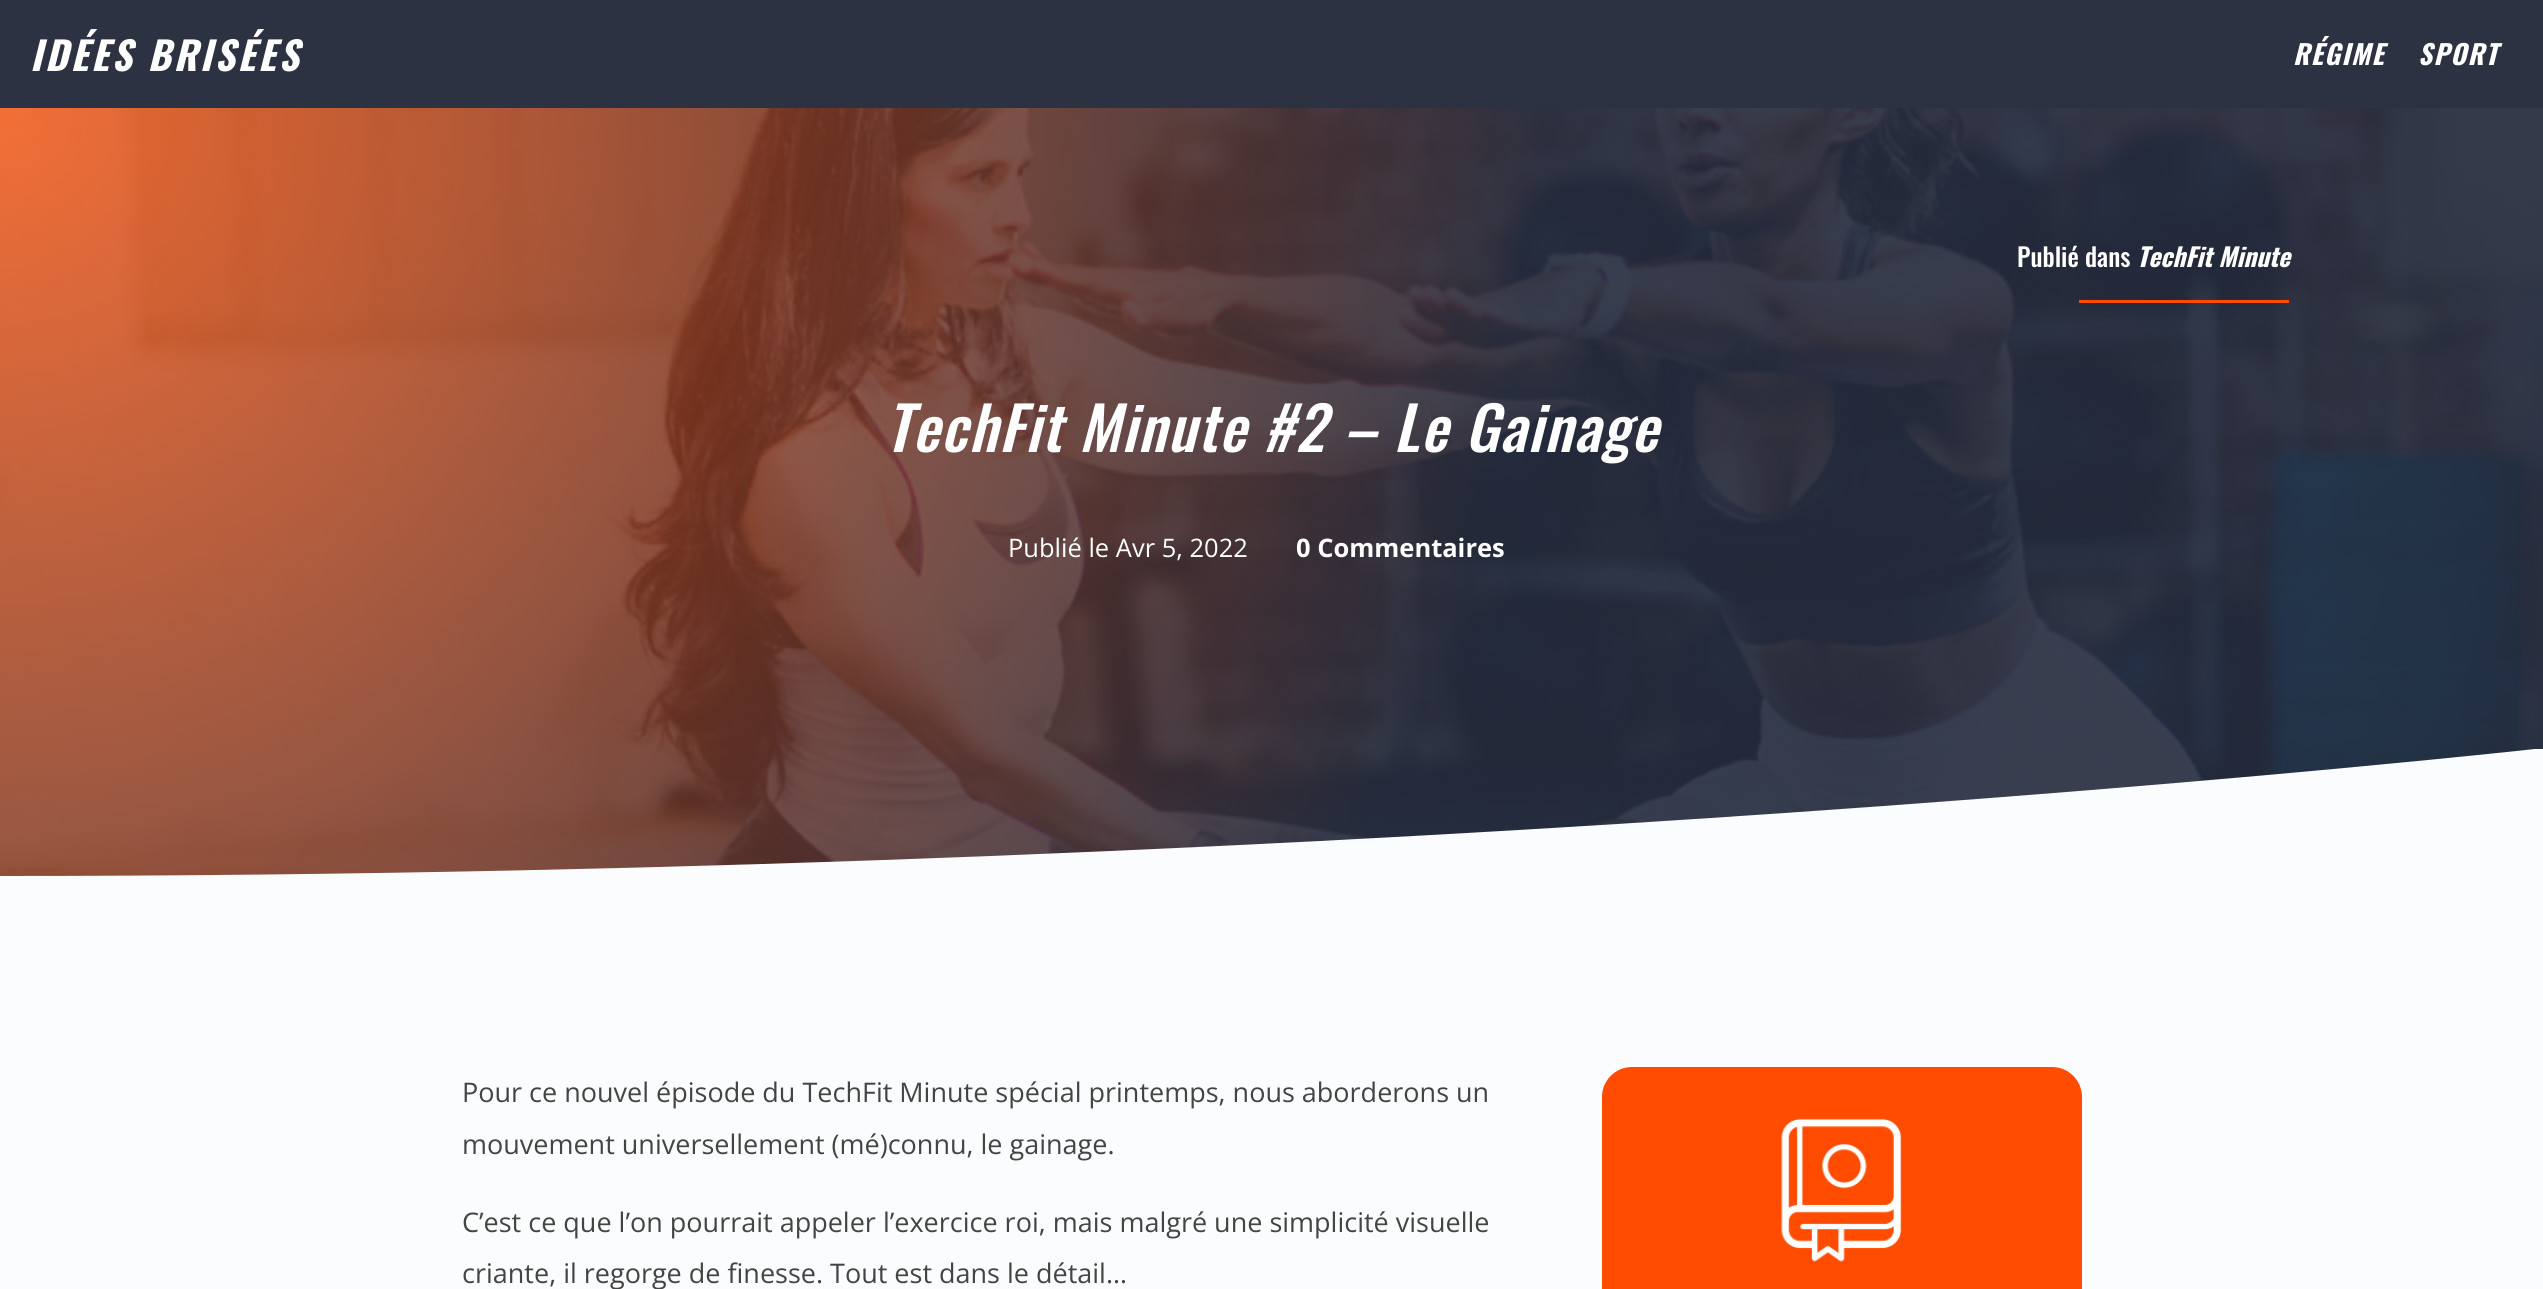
#include <cairo.h>
#include <math.h>
#include <stddef.h>

typedef struct { double x, y; const char *s; } line_t;

static void ink(cairo_t *ctx, unsigned color) {
    cairo_set_source_rgb(ctx, (color >> 16) / 255.0, (color >> 8 & 255) / 255.0, (color & 255) / 255.0);
}

static void write_spaced(cairo_t *ctx, double x, double y, const char *s, double letter, double word) {
    cairo_move_to(ctx, x, y);
    while (*s) {
        char ch[5] = {0};
        int n = 0;
        do ch[n++] = *s++; while ((*s & 0xC0) == 0x80);
        cairo_show_text(ctx, ch);
        cairo_rel_move_to(ctx, letter + word * (*ch == ' '), 0);
    }
}

static void round_path(cairo_t *ctx, double x, double y, double w, double h, double r) {
    cairo_new_sub_path(ctx);
    cairo_arc(ctx, x + w - r, y + h - r, r, 0, M_PI / 2);
    cairo_arc(ctx, x + r, y + h - r, r, M_PI / 2, M_PI);
    cairo_arc(ctx, x + r, y + r, r, M_PI, 1.5 * M_PI);
    cairo_arc(ctx, x + w - r, y + r, r, 1.5 * M_PI, 2 * M_PI);
    cairo_close_path(ctx);
}

static void paste(cairo_t *ctx, const char *path, double x, double y, double w, double h) {
    cairo_surface_t *image = cairo_image_surface_create_from_png(path);
    cairo_save(ctx);
    cairo_set_source_surface(ctx, image, x, y);
    cairo_rectangle(ctx, x, y, w, h);
    cairo_fill(ctx);
    cairo_restore(ctx);
    cairo_surface_destroy(image);
}

int main(void) {
    cairo_surface_t *surface = cairo_image_surface_create(CAIRO_FORMAT_RGB24, 2543, 1289);
    cairo_t *ctx = cairo_create(surface);
    cairo_font_options_t *options = cairo_font_options_create();
    cairo_font_options_set_hint_metrics(options, CAIRO_HINT_METRICS_OFF);
    cairo_font_options_set_hint_style(options, CAIRO_HINT_STYLE_NONE);
    cairo_set_font_options(ctx, options);
    cairo_set_miter_limit(ctx, 4);
    ink(ctx, 0xFBFCFD);
    cairo_paint(ctx);
    ink(ctx, 0x2D3242);
    cairo_rectangle(ctx, 0, 0, 2543, 108);
    cairo_fill(ctx);
    cairo_select_font_face(ctx, "Oswald", CAIRO_FONT_SLANT_ITALIC, CAIRO_FONT_WEIGHT_BOLD);
    cairo_set_font_size(ctx, 39);
    ink(ctx, 0xFFFFFF);
    write_spaced(ctx, 30, 71, "IDÉES BRISÉES", 3, 0);
    cairo_set_font_size(ctx, 27);
    write_spaced(ctx, 2293, 65, "RÉGIME", 1.5, 0);
    write_spaced(ctx, 2418, 65, "SPORT", 1.5, 0);
    paste(ctx, "media/1.png", 0, 108, 2543, 768);
    cairo_select_font_face(ctx, "Oswald Medium", CAIRO_FONT_SLANT_NORMAL, CAIRO_FONT_WEIGHT_NORMAL);
    cairo_set_font_size(ctx, 25.5);
    cairo_move_to(ctx, 2017, 267);
    cairo_show_text(ctx, "Publié dans");
    cairo_select_font_face(ctx, "Oswald", CAIRO_FONT_SLANT_ITALIC, CAIRO_FONT_WEIGHT_BOLD);
    cairo_move_to(ctx, 2137, 267);
    cairo_show_text(ctx, "TechFit Minute");
    ink(ctx, 0xFF4C00);
    cairo_rectangle(ctx, 2079, 300, 210, 3);
    cairo_fill(ctx);
    cairo_select_font_face(ctx, "Oswald Medium", CAIRO_FONT_SLANT_ITALIC, CAIRO_FONT_WEIGHT_NORMAL);
    cairo_set_font_size(ctx, 60);
    ink(ctx, 0xFFFFFF);
    write_spaced(ctx, 885, 452, "TechFit Minute #2 – Le Gainage", 1.5, 0);
    cairo_select_font_face(ctx, "Open Sans", CAIRO_FONT_SLANT_NORMAL, CAIRO_FONT_WEIGHT_NORMAL);
    cairo_set_font_size(ctx, 25.5);
    cairo_move_to(ctx, 1008, 557);
    cairo_show_text(ctx, "Publié le Avr 5, 2022");
    cairo_select_font_face(ctx, "Open Sans", CAIRO_FONT_SLANT_NORMAL, CAIRO_FONT_WEIGHT_BOLD);
    cairo_move_to(ctx, 1296, 557);
    cairo_show_text(ctx, "0 Commentaires");
    cairo_save(ctx);
    cairo_rectangle(ctx, 0, 749, 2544, 127);
    cairo_clip(ctx);
    ink(ctx, 0xFBFCFD);
    cairo_new_path(ctx);
    cairo_move_to(ctx, 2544, 876);
    cairo_line_to(ctx, 0, 876);
    cairo_curve_to(ctx, 1405, 876, 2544, 748, 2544, 748);
    cairo_close_path(ctx);
    cairo_fill(ctx);
    cairo_restore(ctx);
    cairo_select_font_face(ctx, "Open Sans", CAIRO_FONT_SLANT_NORMAL, CAIRO_FONT_WEIGHT_NORMAL);
    cairo_set_font_size(ctx, 27);
    ink(ctx, 0x444444);
    {
        static const line_t items[] = {
            {462, 1102, "Pour ce nouvel épisode du TechFit Minute spécial printemps, nous aborderons un"},
            {462, 1154, "mouvement universellement (mé)connu, le gainage."},
            {462, 1232, "C’est ce que l’on pourrait appeler l’exercice roi, mais malgré une simplicité visuelle"},
            {462, 1283, "criante, il regorge de finesse. Tout est dans le détail…"},
        };
        for (size_t i = 0; i < sizeof items / sizeof *items; i++) {
            cairo_move_to(ctx, items[i].x, items[i].y);
            cairo_show_text(ctx, items[i].s);
        }
    }
    ink(ctx, 0xFF4C00);
    round_path(ctx, 1602, 1067, 480, 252, 30);
    cairo_fill(ctx);
    paste(ctx, "media/2.png", 1781, 1118, 121, 144);
    cairo_surface_write_to_png(surface, "image.png");
    cairo_font_options_destroy(options);
    cairo_destroy(ctx);
    cairo_surface_destroy(surface);
    return 0;
}
